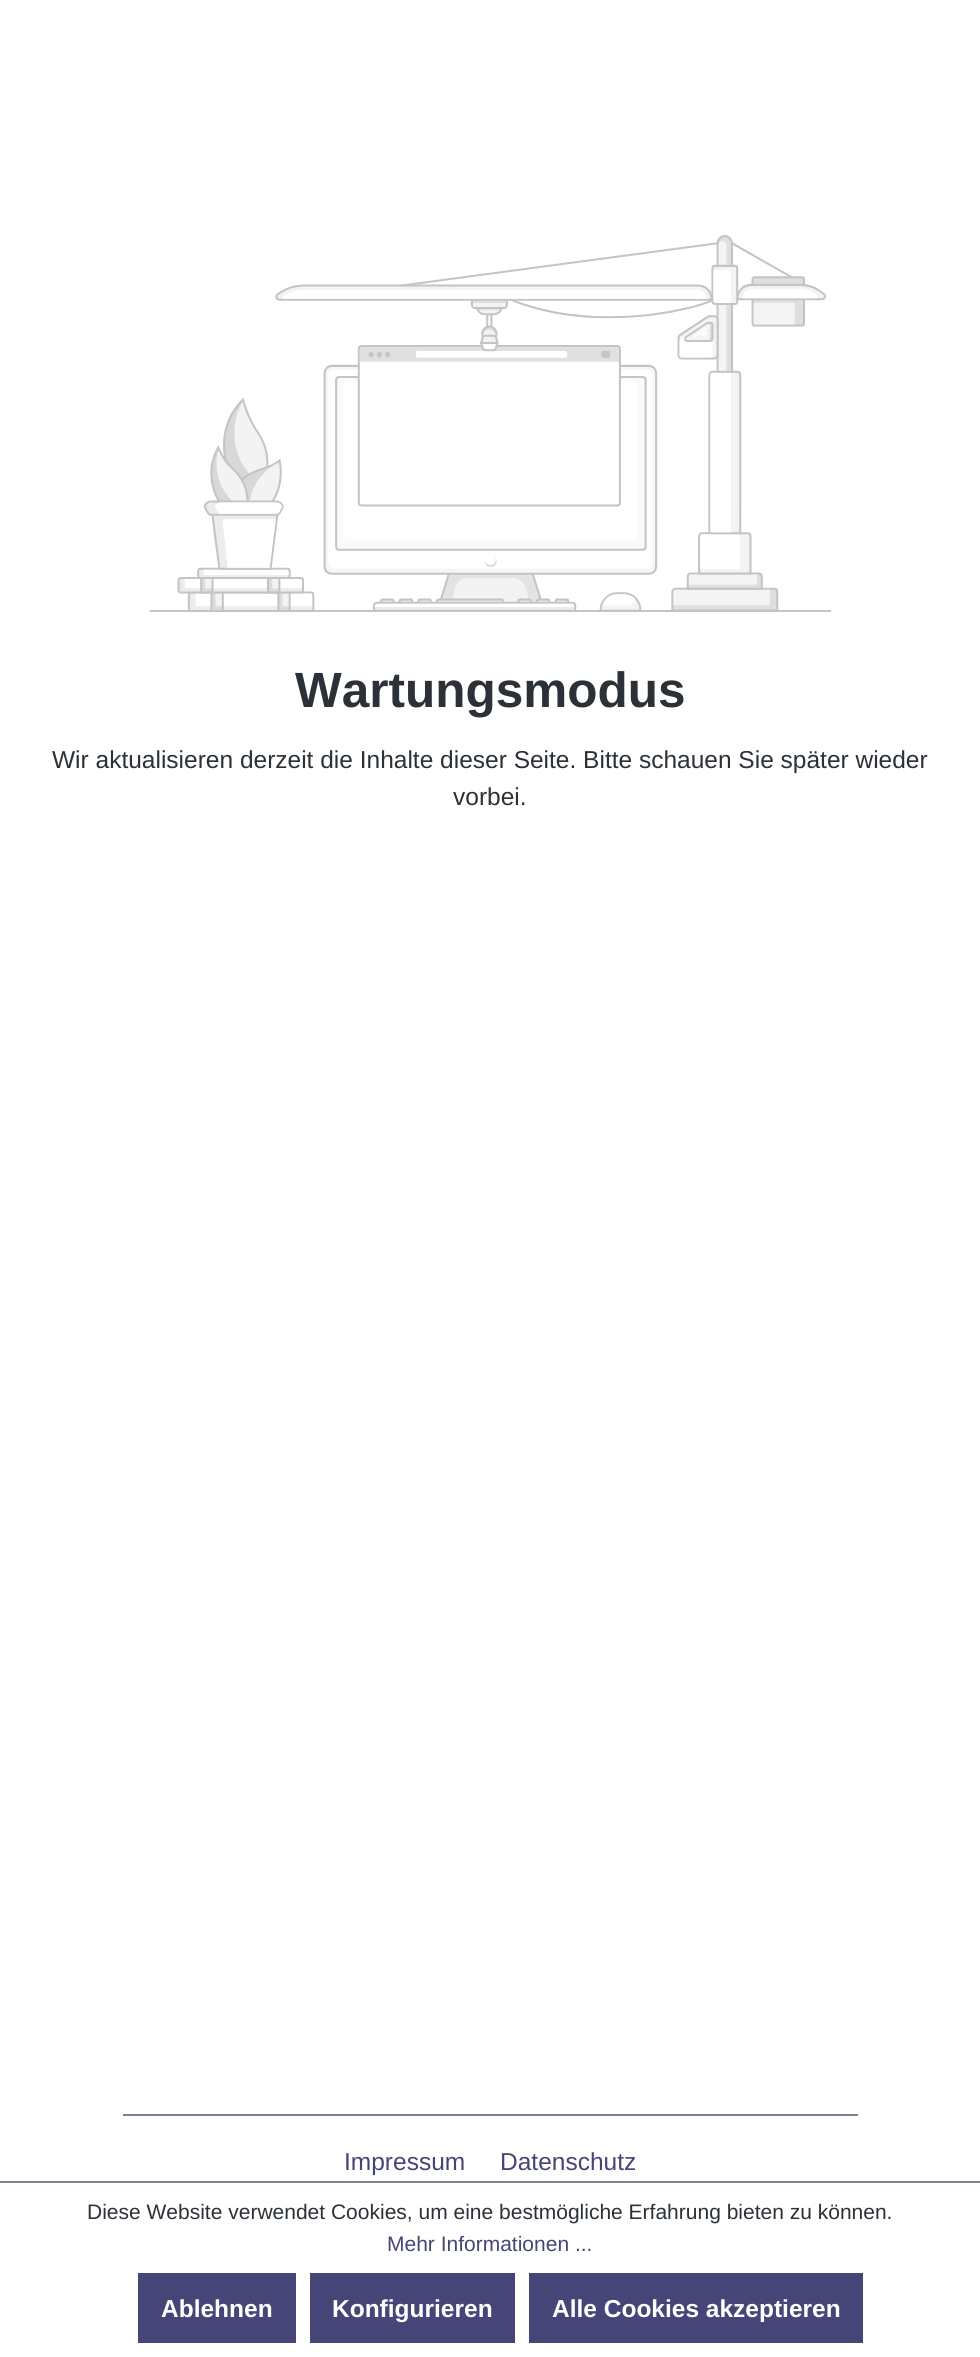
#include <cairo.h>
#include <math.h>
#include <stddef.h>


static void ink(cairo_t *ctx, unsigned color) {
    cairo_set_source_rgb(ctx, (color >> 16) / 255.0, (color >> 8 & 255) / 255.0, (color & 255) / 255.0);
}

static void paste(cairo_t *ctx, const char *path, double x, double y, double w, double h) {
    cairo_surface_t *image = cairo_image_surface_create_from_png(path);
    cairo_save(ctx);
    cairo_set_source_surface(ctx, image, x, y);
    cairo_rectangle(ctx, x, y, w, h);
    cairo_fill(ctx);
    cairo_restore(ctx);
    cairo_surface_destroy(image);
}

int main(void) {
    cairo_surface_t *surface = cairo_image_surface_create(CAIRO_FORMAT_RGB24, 980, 2357);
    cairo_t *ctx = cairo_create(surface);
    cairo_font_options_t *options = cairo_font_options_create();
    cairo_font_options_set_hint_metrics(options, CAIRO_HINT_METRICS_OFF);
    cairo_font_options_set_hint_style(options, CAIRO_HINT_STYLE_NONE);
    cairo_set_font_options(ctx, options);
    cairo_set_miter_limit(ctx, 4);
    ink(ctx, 0xFFFFFF);
    cairo_paint(ctx);
    paste(ctx, "media/1.png", 149, 235, 682, 377);
    cairo_select_font_face(ctx, "Liberation Sans", CAIRO_FONT_SLANT_NORMAL, CAIRO_FONT_WEIGHT_BOLD);
    cairo_set_font_size(ctx, 49.5);
    ink(ctx, 0x2B3136);
    cairo_move_to(ctx, 295, 707);
    cairo_show_text(ctx, "Wartungsmodus");
    cairo_select_font_face(ctx, "Liberation Sans", CAIRO_FONT_SLANT_NORMAL, CAIRO_FONT_WEIGHT_NORMAL);
    cairo_set_font_size(ctx, 24.5);
    cairo_move_to(ctx, 52, 768);
    cairo_show_text(ctx, "Wir aktualisieren derzeit die Inhalte dieser Seite. Bitte schauen Sie später wieder");
    cairo_move_to(ctx, 453, 805);
    cairo_show_text(ctx, "vorbei.");
    ink(ctx, 0x798490);
    cairo_rectangle(ctx, 123, 2114, 735, 2);
    cairo_fill(ctx);
    ink(ctx, 0x454577);
    cairo_move_to(ctx, 344, 2170);
    cairo_show_text(ctx, "Impressum");
    cairo_move_to(ctx, 500, 2170);
    cairo_show_text(ctx, "Datenschutz");
    ink(ctx, 0x798490);
    cairo_rectangle(ctx, 0, 2181, 980, 2);
    cairo_fill(ctx);
    cairo_set_font_size(ctx, 21);
    ink(ctx, 0x2B3136);
    cairo_move_to(ctx, 87, 2219);
    cairo_show_text(ctx, "Diese Website verwendet Cookies, um eine bestmögliche Erfahrung bieten zu können.");
    ink(ctx, 0x454577);
    cairo_move_to(ctx, 387, 2251);
    cairo_show_text(ctx, "Mehr Informationen ...");
    cairo_rectangle(ctx, 138, 2273, 158, 70);
    cairo_fill(ctx);
    cairo_select_font_face(ctx, "Liberation Sans", CAIRO_FONT_SLANT_NORMAL, CAIRO_FONT_WEIGHT_BOLD);
    cairo_set_font_size(ctx, 24.5);
    ink(ctx, 0xFFFFFF);
    cairo_move_to(ctx, 161, 2317);
    cairo_show_text(ctx, "Ablehnen");
    ink(ctx, 0x454577);
    cairo_rectangle(ctx, 310, 2273, 205, 70);
    cairo_fill(ctx);
    ink(ctx, 0xFFFFFF);
    cairo_move_to(ctx, 332, 2317);
    cairo_show_text(ctx, "Konfigurieren");
    ink(ctx, 0x454577);
    cairo_rectangle(ctx, 529, 2273, 334, 70);
    cairo_fill(ctx);
    ink(ctx, 0xFFFFFF);
    cairo_move_to(ctx, 552, 2317);
    cairo_show_text(ctx, "Alle Cookies akzeptieren");
    cairo_surface_write_to_png(surface, "image.png");
    cairo_font_options_destroy(options);
    cairo_destroy(ctx);
    cairo_surface_destroy(surface);
    return 0;
}
